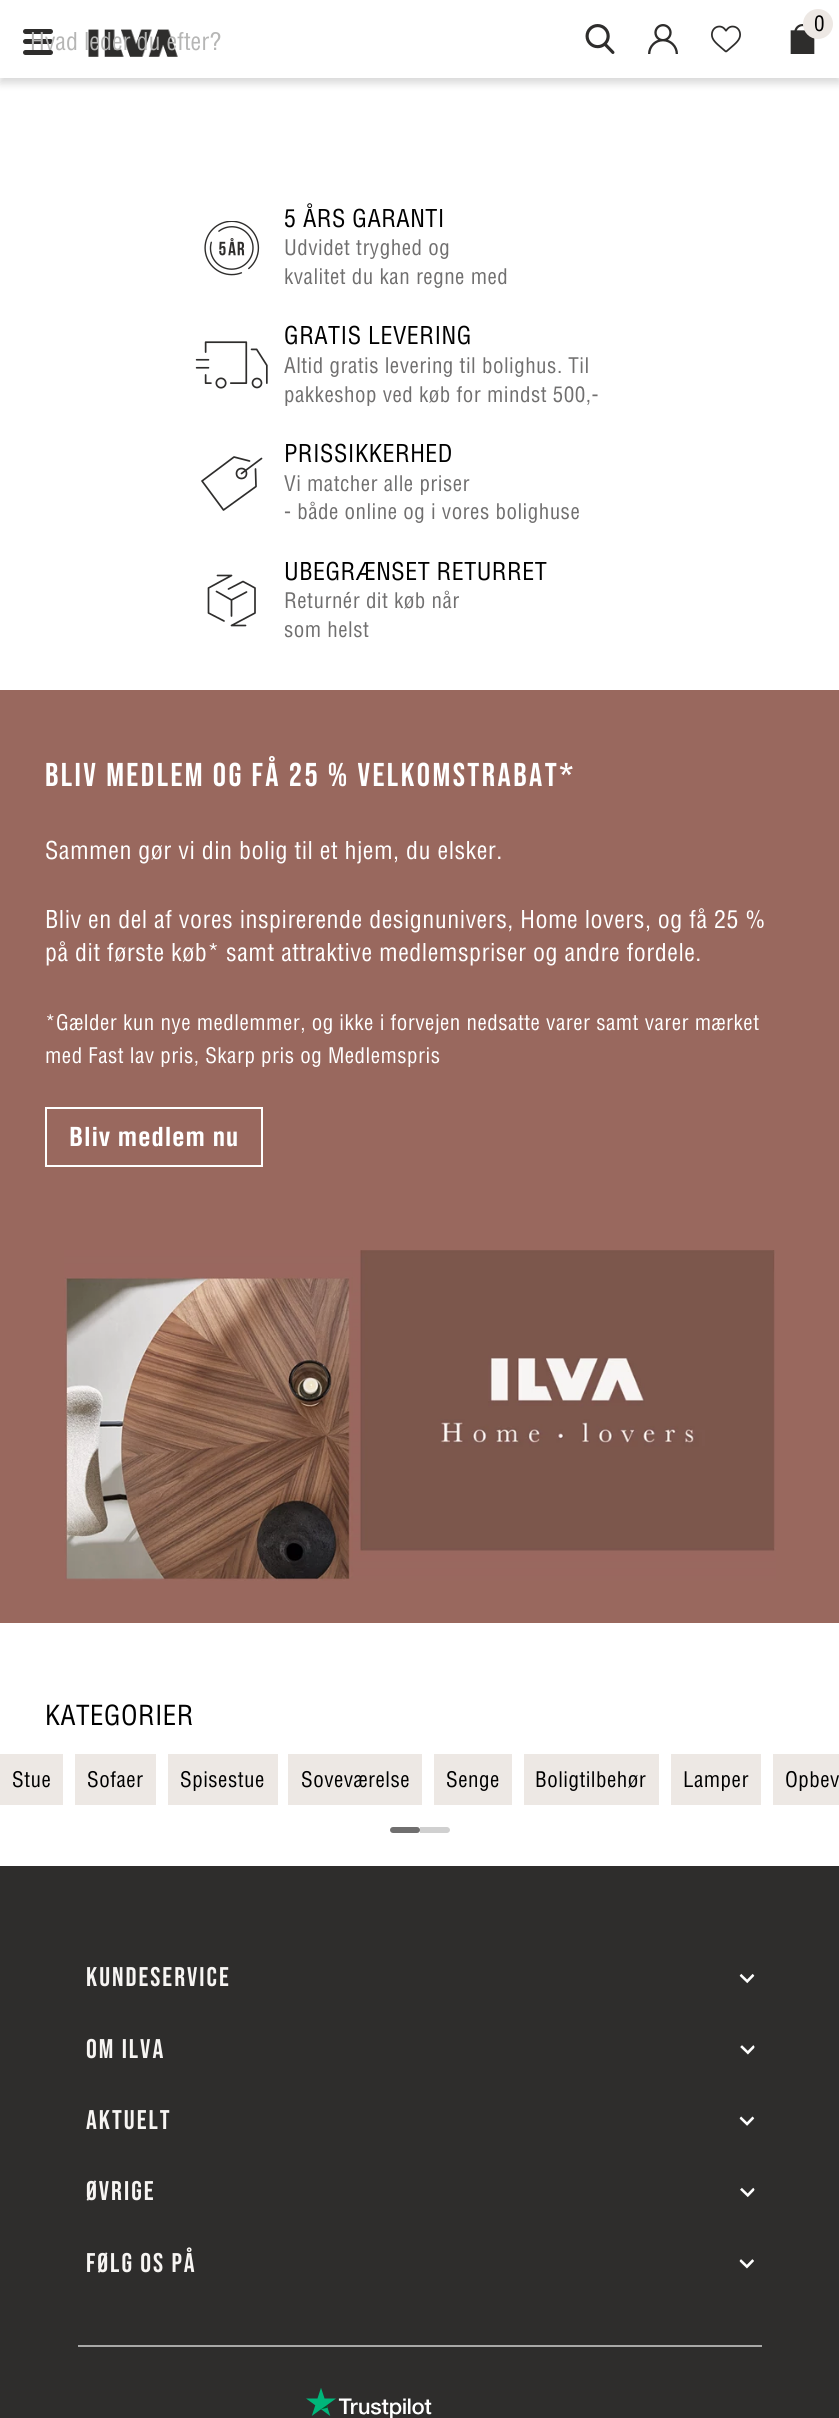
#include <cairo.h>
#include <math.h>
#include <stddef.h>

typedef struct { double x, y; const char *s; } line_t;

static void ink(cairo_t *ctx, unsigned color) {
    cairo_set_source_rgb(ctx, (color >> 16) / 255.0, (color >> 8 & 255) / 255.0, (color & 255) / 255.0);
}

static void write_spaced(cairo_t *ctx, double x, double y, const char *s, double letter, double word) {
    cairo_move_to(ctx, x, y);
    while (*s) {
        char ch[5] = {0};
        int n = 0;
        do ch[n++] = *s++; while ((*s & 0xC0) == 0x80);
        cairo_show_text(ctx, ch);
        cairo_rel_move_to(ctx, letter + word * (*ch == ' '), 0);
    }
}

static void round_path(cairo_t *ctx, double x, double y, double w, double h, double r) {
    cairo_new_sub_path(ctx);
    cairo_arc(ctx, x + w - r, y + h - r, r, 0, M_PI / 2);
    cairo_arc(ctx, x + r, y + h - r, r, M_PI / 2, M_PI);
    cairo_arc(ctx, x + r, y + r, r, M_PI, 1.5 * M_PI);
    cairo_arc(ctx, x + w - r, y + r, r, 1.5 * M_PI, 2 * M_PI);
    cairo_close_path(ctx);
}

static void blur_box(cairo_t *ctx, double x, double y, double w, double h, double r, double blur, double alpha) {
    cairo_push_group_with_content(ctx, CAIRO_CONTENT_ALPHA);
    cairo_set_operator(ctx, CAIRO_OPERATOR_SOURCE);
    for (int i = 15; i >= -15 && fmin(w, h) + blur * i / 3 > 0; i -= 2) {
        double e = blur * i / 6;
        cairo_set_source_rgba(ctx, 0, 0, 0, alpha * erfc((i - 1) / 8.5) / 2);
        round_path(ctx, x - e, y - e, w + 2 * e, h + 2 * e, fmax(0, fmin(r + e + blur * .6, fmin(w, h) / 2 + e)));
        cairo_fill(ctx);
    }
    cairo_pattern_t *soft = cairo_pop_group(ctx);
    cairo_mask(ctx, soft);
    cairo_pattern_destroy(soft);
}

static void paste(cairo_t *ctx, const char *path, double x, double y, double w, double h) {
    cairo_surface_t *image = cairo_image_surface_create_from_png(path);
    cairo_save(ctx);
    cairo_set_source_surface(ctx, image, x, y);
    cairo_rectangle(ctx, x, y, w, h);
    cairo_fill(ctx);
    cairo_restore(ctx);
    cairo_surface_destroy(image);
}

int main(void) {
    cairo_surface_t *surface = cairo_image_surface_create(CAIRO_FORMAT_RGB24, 839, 2418);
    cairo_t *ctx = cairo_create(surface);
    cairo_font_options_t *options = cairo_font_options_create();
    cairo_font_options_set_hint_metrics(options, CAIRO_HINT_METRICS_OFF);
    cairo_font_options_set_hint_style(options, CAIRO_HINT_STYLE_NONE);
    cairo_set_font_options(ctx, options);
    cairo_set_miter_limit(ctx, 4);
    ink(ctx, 0xFFFFFF);
    cairo_paint(ctx);
    ink(ctx, 0x000000);
    blur_box(ctx, 0, 5, 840, 78, 0, 4.5, 0.16);
    ink(ctx, 0xFFFFFF);
    cairo_rectangle(ctx, 0, 0, 839, 78);
    cairo_fill(ctx);
    paste(ctx, "media/1.png", 585, 24, 30, 30);
    paste(ctx, "media/2.png", 648, 24, 30, 30);
    paste(ctx, "media/3.png", 711, 25, 30, 28);
    paste(ctx, "media/4.png", 790, 24, 25, 30);
    ink(ctx, 0xEDE8E4);
    cairo_arc(ctx, 818, 24, 15, 0, 2 * M_PI);
    cairo_fill(ctx);
    cairo_select_font_face(ctx, "Helvetica", CAIRO_FONT_SLANT_NORMAL, CAIRO_FONT_WEIGHT_NORMAL);
    cairo_set_font_size(ctx, 21);
    ink(ctx, 0x000000);
    write_spaced(ctx, 814, 31, "0", 0.48, 0);
    ink(ctx, 0x2E2D2C);
    round_path(ctx, 23, 39, 30, 5, 2.5);
    cairo_fill(ctx);
    round_path(ctx, 23, 29, 30, 5, 2.5);
    cairo_fill(ctx);
    round_path(ctx, 23, 50, 30, 5, 2.5);
    cairo_fill(ctx);
    paste(ctx, "media/5.png", 88, 29, 90, 28);
    cairo_set_font_size(ctx, 24);
    ink(ctx, 0xB6B6B5);
    cairo_move_to(ctx, 30, 50);
    cairo_show_text(ctx, "Hvad leder du efter?");
    paste(ctx, "media/6.png", 204, 221, 56, 55);
    ink(ctx, 0x000000);
    write_spaced(ctx, 284, 227, "5 ÅRS GARANTI", 0.48, 0);
    cairo_set_font_size(ctx, 21);
    ink(ctx, 0x706F6F);
    write_spaced(ctx, 284, 255, "Udvidet tryghed og", 0.48, 0);
    write_spaced(ctx, 284, 284, "kvalitet du kan regne med", 0.48, 0);
    paste(ctx, "media/7.png", 195, 341, 73, 48);
    cairo_set_font_size(ctx, 24);
    ink(ctx, 0x000000);
    write_spaced(ctx, 284, 344, "GRATIS LEVERING", 0.48, 0);
    cairo_set_font_size(ctx, 21);
    ink(ctx, 0x706F6F);
    write_spaced(ctx, 284, 373, "Altid gratis levering til bolighus. Til", 0.48, 0);
    write_spaced(ctx, 284, 402, "pakkeshop ved køb for mindst 500,-", 0.48, 0);
    cairo_new_path(ctx);
    cairo_arc(ctx, 241.5, 473.5, 5, 0, 2 * M_PI);
    ink(ctx, 0x2E2D2C);
    cairo_set_line_width(ctx, 1.7);
    cairo_stroke(ctx);
    cairo_new_path(ctx);
    cairo_move_to(ctx, 255.5, 469);
    cairo_line_to(ctx, 256, 486.5);
    cairo_line_to(ctx, 223.5, 510);
    cairo_line_to(ctx, 202, 481);
    cairo_line_to(ctx, 234, 457);
    cairo_line_to(ctx, 249.5, 461);
    cairo_move_to(ctx, 261.5, 458.5);
    cairo_line_to(ctx, 241.5, 473.5);
    cairo_set_line_cap(ctx, CAIRO_LINE_CAP_ROUND);
    cairo_set_line_join(ctx, CAIRO_LINE_JOIN_ROUND);
    cairo_stroke(ctx);
    cairo_set_font_size(ctx, 24);
    ink(ctx, 0x000000);
    write_spaced(ctx, 284, 462, "PRISSIKKERHED", 0.48, 0);
    cairo_set_font_size(ctx, 21);
    ink(ctx, 0x706F6F);
    write_spaced(ctx, 284, 491, "Vi matcher alle priser", 0.48, 0);
    write_spaced(ctx, 284, 519, "- både online og i vores bolighuse", 0.48, 0);
    cairo_new_path(ctx);
    cairo_move_to(ctx, 228.5, 589);
    cairo_line_to(ctx, 243, 581.5);
    cairo_line_to(ctx, 255, 588);
    cairo_line_to(ctx, 255, 613);
    cairo_line_to(ctx, 231.5, 625.5);
    cairo_line_to(ctx, 245.5, 625.5);
    cairo_move_to(ctx, 224, 621);
    cairo_line_to(ctx, 208.5, 613);
    cairo_line_to(ctx, 208.5, 588);
    cairo_line_to(ctx, 231.5, 575.5);
    cairo_line_to(ctx, 217.5, 575.5);
    cairo_move_to(ctx, 216.5, 591.5);
    cairo_line_to(ctx, 231.5, 600);
    cairo_line_to(ctx, 231.5, 616);
    cairo_move_to(ctx, 246.5, 592);
    cairo_line_to(ctx, 231.5, 600);
    ink(ctx, 0x2E2D2C);
    cairo_stroke(ctx);
    cairo_set_font_size(ctx, 24);
    ink(ctx, 0x000000);
    write_spaced(ctx, 284, 580, "UBEGRÆNSET RETURRET", 0.48, 0);
    cairo_set_font_size(ctx, 21);
    ink(ctx, 0x706F6F);
    write_spaced(ctx, 284, 608, "Returnér dit køb når", 0.48, 0);
    write_spaced(ctx, 284, 637, "som helst", 0.48, 0);
    ink(ctx, 0x99685E);
    cairo_rectangle(ctx, 0, 690, 839, 933);
    cairo_fill(ctx);
    cairo_select_font_face(ctx, "Bebas Neue", CAIRO_FONT_SLANT_NORMAL, CAIRO_FONT_WEIGHT_NORMAL);
    cairo_set_font_size(ctx, 33);
    ink(ctx, 0xFFFFFF);
    write_spaced(ctx, 45, 786, "BLIV MEDLEM OG FÅ 25 % VELKOMSTRABAT*", 2.45, 0);
    cairo_select_font_face(ctx, "Helvetica", CAIRO_FONT_SLANT_NORMAL, CAIRO_FONT_WEIGHT_NORMAL);
    cairo_set_font_size(ctx, 24);
    {
        static const line_t items[] = {
            {45, 859, "Sammen gør vi din bolig til et hjem, du elsker."},
            {45, 928, "Bliv en del af vores inspirerende designunivers, Home lovers, og få 25 %"},
            {45, 961, "på dit første køb* samt attraktive medlemspriser og andre fordele."},
        };
        for (size_t i = 0; i < sizeof items / sizeof *items; i++) {
            write_spaced(ctx, items[i].x, items[i].y, items[i].s, 0.48, 0);
        }
    }
    cairo_set_font_size(ctx, 21);
    write_spaced(ctx, 45, 1030, "*Gælder kun nye medlemmer, og ikke i forvejen nedsatte varer samt varer mærket", 0.48, 0);
    write_spaced(ctx, 45, 1063, "med Fast lav pris, Skarp pris og Medlemspris", 0.48, 0);
    cairo_rectangle(ctx, 46, 1108, 216, 58);
    cairo_set_line_width(ctx, 2);
    cairo_set_line_cap(ctx, CAIRO_LINE_CAP_BUTT);
    cairo_set_line_join(ctx, CAIRO_LINE_JOIN_MITER);
    cairo_stroke(ctx);
    cairo_select_font_face(ctx, "Helvetica", CAIRO_FONT_SLANT_NORMAL, CAIRO_FONT_WEIGHT_BOLD);
    cairo_set_font_size(ctx, 25.5);
    write_spaced(ctx, 69, 1146, "Bliv medlem nu", 0.5, 0);
    paste(ctx, "media/8.png", 64, 1250, 712, 331);
    cairo_select_font_face(ctx, "Helvetica", CAIRO_FONT_SLANT_NORMAL, CAIRO_FONT_WEIGHT_NORMAL);
    cairo_set_font_size(ctx, 27);
    ink(ctx, 0x000000);
    write_spaced(ctx, 45, 1725, "KATEGORIER", 0.48, 0);
    ink(ctx, 0xEDE8E4);
    cairo_rectangle(ctx, 0, 1754, 63, 51);
    cairo_fill(ctx);
    cairo_set_font_size(ctx, 21);
    ink(ctx, 0x000000);
    write_spaced(ctx, 12, 1787, "Stue", 0.48, 0);
    ink(ctx, 0xEDE8E4);
    cairo_rectangle(ctx, 75, 1754, 81, 51);
    cairo_fill(ctx);
    ink(ctx, 0x000000);
    write_spaced(ctx, 87, 1787, "Sofaer", 0.48, 0);
    ink(ctx, 0xEDE8E4);
    cairo_rectangle(ctx, 168, 1754, 110, 51);
    cairo_fill(ctx);
    ink(ctx, 0x000000);
    write_spaced(ctx, 180, 1787, "Spisestue", 0.48, 0);
    ink(ctx, 0xEDE8E4);
    cairo_rectangle(ctx, 288, 1754, 134, 51);
    cairo_fill(ctx);
    ink(ctx, 0x000000);
    write_spaced(ctx, 301, 1787, "Soveværelse", 0.48, 0);
    ink(ctx, 0xEDE8E4);
    cairo_rectangle(ctx, 434, 1754, 78, 51);
    cairo_fill(ctx);
    ink(ctx, 0x000000);
    write_spaced(ctx, 446, 1787, "Senge", 0.48, 0);
    ink(ctx, 0xEDE8E4);
    cairo_rectangle(ctx, 524, 1754, 135, 51);
    cairo_fill(ctx);
    ink(ctx, 0x000000);
    write_spaced(ctx, 535, 1787, "Boligtilbehør", 0.48, 0);
    ink(ctx, 0xEDE8E4);
    cairo_rectangle(ctx, 671, 1754, 90, 51);
    cairo_fill(ctx);
    ink(ctx, 0x000000);
    write_spaced(ctx, 683, 1787, "Lamper", 0.48, 0);
    ink(ctx, 0xEDE8E4);
    cairo_rectangle(ctx, 773, 1754, 66, 51);
    cairo_fill(ctx);
    ink(ctx, 0x000000);
    write_spaced(ctx, 785, 1787, "Opbev", 0.48, 0);
    ink(ctx, 0x706F6F);
    round_path(ctx, 390, 1827, 30, 6, 3);
    cairo_fill(ctx);
    ink(ctx, 0xD0D0D0);
    cairo_new_path(ctx);
    cairo_move_to(ctx, 420, 1827);
    cairo_line_to(ctx, 447, 1827);
    cairo_curve_to(ctx, 448.5, 1827, 450, 1828.5, 450, 1830);
    cairo_curve_to(ctx, 450, 1831.5, 448.5, 1833, 447, 1833);
    cairo_line_to(ctx, 420, 1833);
    cairo_close_path(ctx);
    cairo_fill(ctx);
    ink(ctx, 0x2E2D2C);
    cairo_rectangle(ctx, 0, 1866, 839, 552);
    cairo_fill(ctx);
    cairo_select_font_face(ctx, "Bebas Neue", CAIRO_FONT_SLANT_NORMAL, CAIRO_FONT_WEIGHT_NORMAL);
    cairo_set_font_size(ctx, 27);
    ink(ctx, 0xF7F5F3);
    write_spaced(ctx, 86, 1986, "KUNDESERVICE", 2, 0);
    paste(ctx, "media/9.png", 739, 1973, 16, 11);
    write_spaced(ctx, 86, 2058, "OM ILVA", 2, 0);
    paste(ctx, "media/10.png", 740, 2045, 15, 10);
    write_spaced(ctx, 86, 2129, "AKTUELT", 2, 0);
    paste(ctx, "media/11.png", 739, 2116, 16, 10);
    write_spaced(ctx, 86, 2200, "ØVRIGE", 2, 0);
    paste(ctx, "media/12.png", 740, 2187, 15, 11);
    write_spaced(ctx, 86, 2272, "FØLG OS PÅ", 2, 0);
    paste(ctx, "media/13.png", 739, 2259, 15, 10);
    ink(ctx, 0xA8A8A7);
    cairo_rectangle(ctx, 78, 2345, 684, 2);
    cairo_fill(ctx);
    paste(ctx, "media/14.png", 306, 2388, 126, 30);
    cairo_surface_write_to_png(surface, "image.png");
    cairo_font_options_destroy(options);
    cairo_destroy(ctx);
    cairo_surface_destroy(surface);
    return 0;
}
